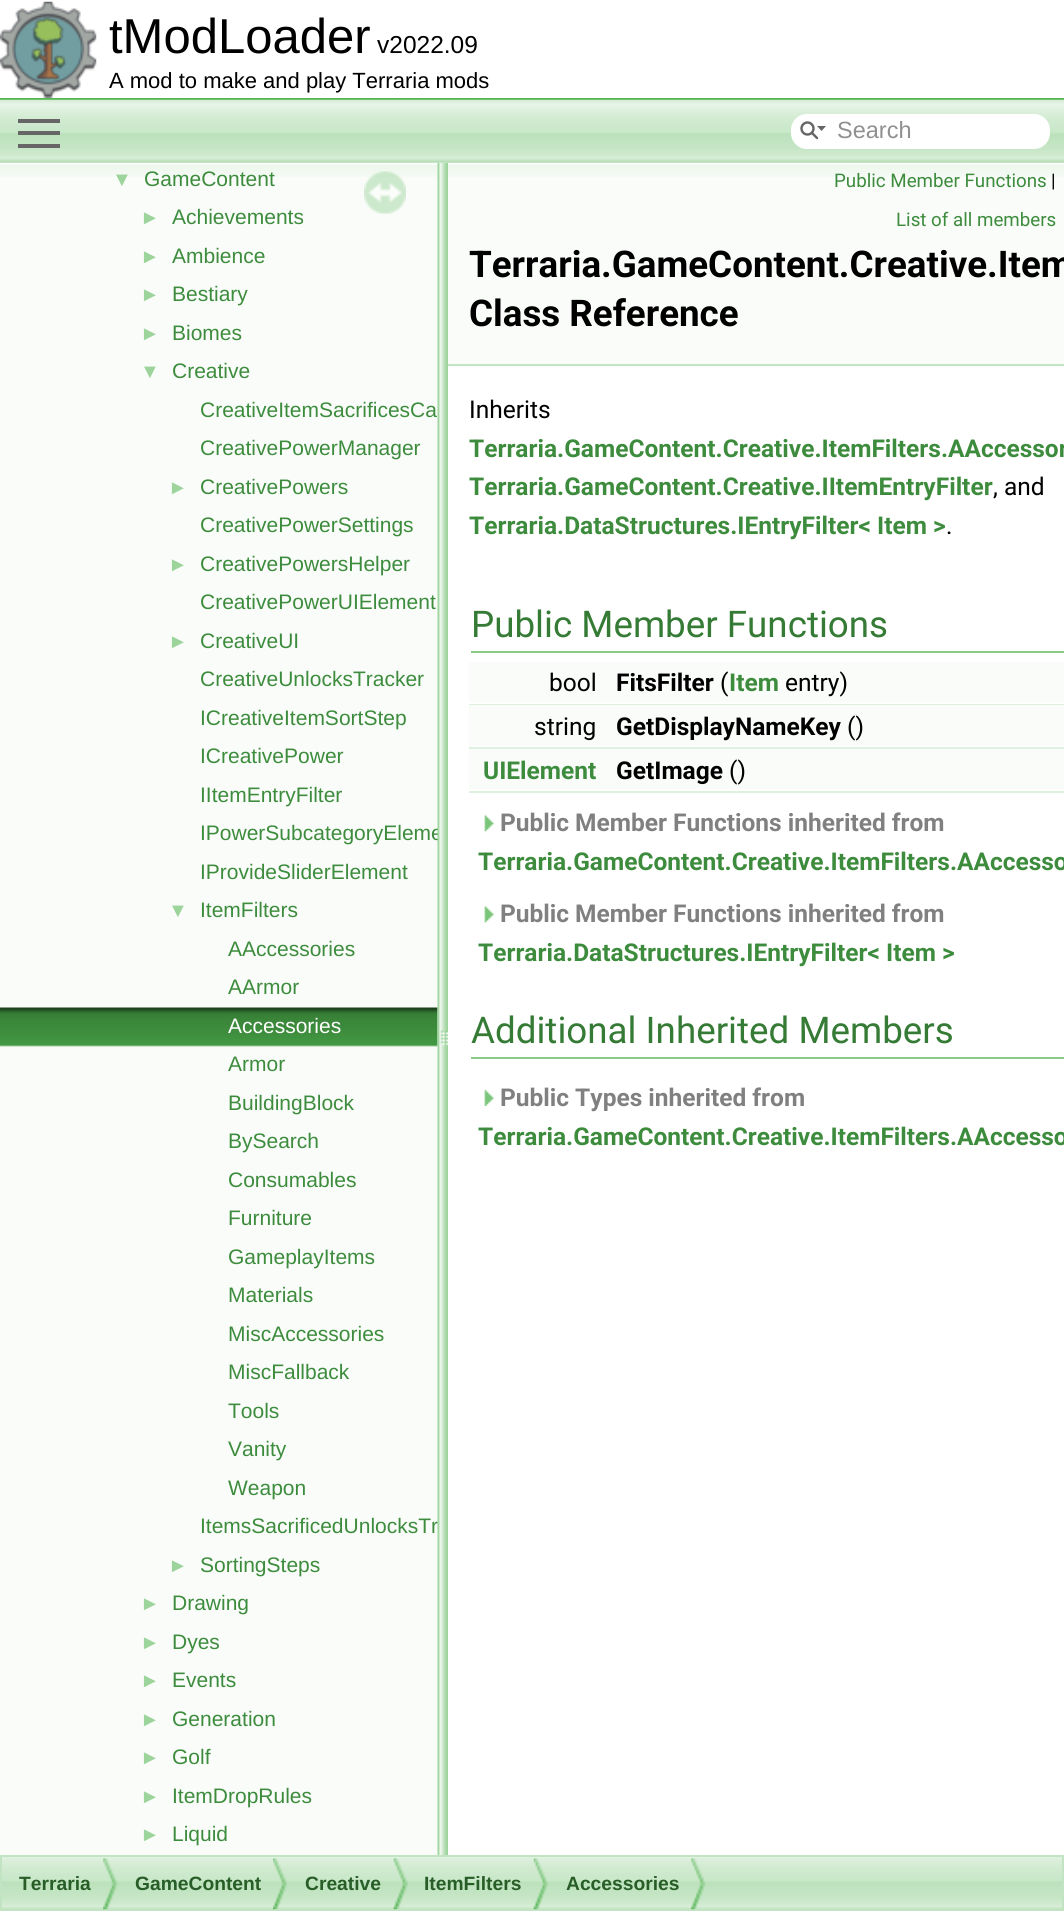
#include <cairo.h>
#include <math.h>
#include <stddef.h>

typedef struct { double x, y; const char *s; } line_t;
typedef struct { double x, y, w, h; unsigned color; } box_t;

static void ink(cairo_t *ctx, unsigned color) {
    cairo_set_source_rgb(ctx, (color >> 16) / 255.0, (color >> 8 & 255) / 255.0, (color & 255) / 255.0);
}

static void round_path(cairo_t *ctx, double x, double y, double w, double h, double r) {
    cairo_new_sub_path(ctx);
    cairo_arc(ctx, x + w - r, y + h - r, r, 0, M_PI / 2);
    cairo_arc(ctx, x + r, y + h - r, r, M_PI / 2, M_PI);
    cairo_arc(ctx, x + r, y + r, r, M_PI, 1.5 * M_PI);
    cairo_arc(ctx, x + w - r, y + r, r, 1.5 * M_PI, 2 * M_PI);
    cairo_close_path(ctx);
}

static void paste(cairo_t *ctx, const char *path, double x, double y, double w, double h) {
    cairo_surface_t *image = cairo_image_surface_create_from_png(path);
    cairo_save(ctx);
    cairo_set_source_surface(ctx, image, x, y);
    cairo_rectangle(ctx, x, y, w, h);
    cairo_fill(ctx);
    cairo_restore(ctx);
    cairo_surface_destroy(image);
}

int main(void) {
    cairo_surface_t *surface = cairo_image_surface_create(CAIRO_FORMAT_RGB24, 1064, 1911);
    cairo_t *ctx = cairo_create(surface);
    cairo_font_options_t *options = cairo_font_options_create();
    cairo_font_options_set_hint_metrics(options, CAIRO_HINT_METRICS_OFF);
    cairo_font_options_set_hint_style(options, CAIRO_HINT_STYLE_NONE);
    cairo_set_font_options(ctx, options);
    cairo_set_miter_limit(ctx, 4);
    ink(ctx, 0xFFFFFF);
    cairo_paint(ctx);
    ink(ctx, 0x53B453);
    cairo_rectangle(ctx, 0, 98, 1064, 2);
    cairo_fill(ctx);
    paste(ctx, "media/1.png", 0, 1, 97, 97);
    cairo_select_font_face(ctx, "Liberation Sans", CAIRO_FONT_SLANT_NORMAL, CAIRO_FONT_WEIGHT_NORMAL);
    cairo_set_font_size(ctx, 49);
    ink(ctx, 0x000000);
    cairo_move_to(ctx, 109, 53);
    cairo_show_text(ctx, "tModLoader");
    cairo_set_font_size(ctx, 24.5);
    cairo_move_to(ctx, 377, 53);
    cairo_show_text(ctx, "v2022.09");
    cairo_set_font_size(ctx, 22);
    cairo_move_to(ctx, 109, 88);
    cairo_show_text(ctx, "A mod to make and play Terraria mods");
    ink(ctx, 0xF9FCF9);
    cairo_rectangle(ctx, 0, 163, 438, 1692);
    cairo_fill(ctx);
    paste(ctx, "media/3.png", 0, 163, 438, 14);
    cairo_set_font_size(ctx, 21);
    ink(ctx, 0x3D8C3D);
    cairo_move_to(ctx, 200, 840);
    cairo_show_text(ctx, "IPowerSubcategoryEleme");
    paste(ctx, "media/4.png", 0, 1007, 438, 40);
    cairo_move_to(ctx, 200, 1533);
    cairo_show_text(ctx, "ItemsSacrificedUnlocksTr");
    paste(ctx, "media/6.png", 437, 162, 11, 1693);
    paste(ctx, "media/2.png", 0, 99, 1064, 64);
    {
        static const box_t items[] = {
            {18, 131, 42, 4, 0x666666},
            {18, 119, 42, 4, 0x666666},
            {18, 144, 42, 4, 0x666666},
        };
        for (size_t i = 0; i < sizeof items / sizeof *items; i++) {
            ink(ctx, items[i].color);
            cairo_rectangle(ctx, items[i].x, items[i].y, items[i].w, items[i].h);
            cairo_fill(ctx);
        }
    }
    ink(ctx, 0xFFFFFF);
    round_path(ctx, 791, 114, 259, 35, 16);
    cairo_fill(ctx);
    cairo_arc(ctx, 807.5, 128.5, 6, 0, 2 * M_PI);
    ink(ctx, 0x656565);
    cairo_set_line_width(ctx, 2.4);
    cairo_stroke(ctx);
    cairo_new_path(ctx);
    cairo_move_to(ctx, 817, 126);
    cairo_line_to(ctx, 821.5, 131);
    cairo_line_to(ctx, 826, 126);
    cairo_close_path(ctx);
    cairo_fill(ctx);
    cairo_new_path(ctx);
    cairo_move_to(ctx, 812, 133);
    cairo_line_to(ctx, 817, 138);
    cairo_set_line_cap(ctx, CAIRO_LINE_CAP_ROUND);
    cairo_stroke(ctx);
    cairo_set_font_size(ctx, 23.5);
    ink(ctx, 0x909090);
    cairo_move_to(ctx, 837, 138);
    cairo_show_text(ctx, "Search");
    cairo_set_font_size(ctx, 20);
    ink(ctx, 0x9CD49C);
    cairo_move_to(ctx, 112, 186);
    cairo_show_text(ctx, "▼");
    cairo_set_font_size(ctx, 21);
    ink(ctx, 0x3D8C3D);
    cairo_move_to(ctx, 144, 186);
    cairo_show_text(ctx, "GameContent");
    cairo_set_font_size(ctx, 20);
    ink(ctx, 0x9CD49C);
    cairo_move_to(ctx, 140, 224);
    cairo_show_text(ctx, "►");
    cairo_set_font_size(ctx, 21);
    ink(ctx, 0x3D8C3D);
    cairo_move_to(ctx, 172, 224);
    cairo_show_text(ctx, "Achievements");
    cairo_set_font_size(ctx, 20);
    ink(ctx, 0x9CD49C);
    cairo_move_to(ctx, 140, 263);
    cairo_show_text(ctx, "►");
    cairo_set_font_size(ctx, 21);
    ink(ctx, 0x3D8C3D);
    cairo_move_to(ctx, 172, 263);
    cairo_show_text(ctx, "Ambience");
    cairo_set_font_size(ctx, 20);
    ink(ctx, 0x9CD49C);
    cairo_move_to(ctx, 140, 301);
    cairo_show_text(ctx, "►");
    cairo_set_font_size(ctx, 21);
    ink(ctx, 0x3D8C3D);
    cairo_move_to(ctx, 172, 301);
    cairo_show_text(ctx, "Bestiary");
    cairo_set_font_size(ctx, 20);
    ink(ctx, 0x9CD49C);
    cairo_move_to(ctx, 140, 340);
    cairo_show_text(ctx, "►");
    cairo_set_font_size(ctx, 21);
    ink(ctx, 0x3D8C3D);
    cairo_move_to(ctx, 172, 340);
    cairo_show_text(ctx, "Biomes");
    cairo_set_font_size(ctx, 20);
    ink(ctx, 0x9CD49C);
    cairo_move_to(ctx, 140, 378);
    cairo_show_text(ctx, "▼");
    cairo_set_font_size(ctx, 21);
    ink(ctx, 0x3D8C3D);
    {
        static const line_t items[] = {
            {172, 378, "Creative"},
            {200, 417, "CreativeItemSacrificesCa"},
            {200, 455, "CreativePowerManager"},
        };
        for (size_t i = 0; i < sizeof items / sizeof *items; i++) {
            cairo_move_to(ctx, items[i].x, items[i].y);
            cairo_show_text(ctx, items[i].s);
        }
    }
    cairo_set_font_size(ctx, 20);
    ink(ctx, 0x9CD49C);
    cairo_move_to(ctx, 168, 494);
    cairo_show_text(ctx, "►");
    cairo_set_font_size(ctx, 21);
    ink(ctx, 0x3D8C3D);
    cairo_move_to(ctx, 200, 494);
    cairo_show_text(ctx, "CreativePowers");
    cairo_move_to(ctx, 200, 532);
    cairo_show_text(ctx, "CreativePowerSettings");
    cairo_set_font_size(ctx, 20);
    ink(ctx, 0x9CD49C);
    cairo_move_to(ctx, 168, 571);
    cairo_show_text(ctx, "►");
    cairo_set_font_size(ctx, 21);
    ink(ctx, 0x3D8C3D);
    cairo_move_to(ctx, 200, 571);
    cairo_show_text(ctx, "CreativePowersHelper");
    cairo_move_to(ctx, 200, 609);
    cairo_show_text(ctx, "CreativePowerUIElement");
    cairo_set_font_size(ctx, 20);
    ink(ctx, 0x9CD49C);
    cairo_move_to(ctx, 168, 648);
    cairo_show_text(ctx, "►");
    cairo_set_font_size(ctx, 21);
    ink(ctx, 0x3D8C3D);
    {
        static const line_t items[] = {
            {200, 648, "CreativeUI"},
            {200, 686, "CreativeUnlocksTracker"},
            {200, 725, "ICreativeItemSortStep"},
            {200, 763, "ICreativePower"},
            {200, 802, "IItemEntryFilter"},
            {200, 879, "IProvideSliderElement"},
        };
        for (size_t i = 0; i < sizeof items / sizeof *items; i++) {
            cairo_move_to(ctx, items[i].x, items[i].y);
            cairo_show_text(ctx, items[i].s);
        }
    }
    cairo_set_font_size(ctx, 20);
    ink(ctx, 0x9CD49C);
    cairo_move_to(ctx, 168, 917);
    cairo_show_text(ctx, "▼");
    cairo_set_font_size(ctx, 21);
    ink(ctx, 0x3D8C3D);
    {
        static const line_t items[] = {
            {200, 917, "ItemFilters"},
            {228, 956, "AAccessories"},
            {228, 994, "AArmor"},
        };
        for (size_t i = 0; i < sizeof items / sizeof *items; i++) {
            cairo_move_to(ctx, items[i].x, items[i].y);
            cairo_show_text(ctx, items[i].s);
        }
    }
    ink(ctx, 0xFFFFFF);
    cairo_move_to(ctx, 228, 1033);
    cairo_show_text(ctx, "Accessories");
    ink(ctx, 0x3D8C3D);
    {
        static const line_t items[] = {
            {228, 1071, "Armor"},
            {228, 1110, "BuildingBlock"},
            {228, 1148, "BySearch"},
            {228, 1187, "Consumables"},
            {228, 1225, "Furniture"},
            {228, 1264, "GameplayItems"},
            {228, 1302, "Materials"},
            {228, 1341, "MiscAccessories"},
            {228, 1379, "MiscFallback"},
            {228, 1418, "Tools"},
            {228, 1456, "Vanity"},
            {228, 1495, "Weapon"},
        };
        for (size_t i = 0; i < sizeof items / sizeof *items; i++) {
            cairo_move_to(ctx, items[i].x, items[i].y);
            cairo_show_text(ctx, items[i].s);
        }
    }
    cairo_set_font_size(ctx, 20);
    ink(ctx, 0x9CD49C);
    cairo_move_to(ctx, 168, 1572);
    cairo_show_text(ctx, "►");
    cairo_set_font_size(ctx, 21);
    ink(ctx, 0x3D8C3D);
    cairo_move_to(ctx, 200, 1572);
    cairo_show_text(ctx, "SortingSteps");
    cairo_set_font_size(ctx, 20);
    ink(ctx, 0x9CD49C);
    cairo_move_to(ctx, 140, 1610);
    cairo_show_text(ctx, "►");
    cairo_set_font_size(ctx, 21);
    ink(ctx, 0x3D8C3D);
    cairo_move_to(ctx, 172, 1610);
    cairo_show_text(ctx, "Drawing");
    cairo_set_font_size(ctx, 20);
    ink(ctx, 0x9CD49C);
    cairo_move_to(ctx, 140, 1649);
    cairo_show_text(ctx, "►");
    cairo_set_font_size(ctx, 21);
    ink(ctx, 0x3D8C3D);
    cairo_move_to(ctx, 172, 1649);
    cairo_show_text(ctx, "Dyes");
    cairo_set_font_size(ctx, 20);
    ink(ctx, 0x9CD49C);
    cairo_move_to(ctx, 140, 1687);
    cairo_show_text(ctx, "►");
    cairo_set_font_size(ctx, 21);
    ink(ctx, 0x3D8C3D);
    cairo_move_to(ctx, 172, 1687);
    cairo_show_text(ctx, "Events");
    cairo_set_font_size(ctx, 20);
    ink(ctx, 0x9CD49C);
    cairo_move_to(ctx, 140, 1726);
    cairo_show_text(ctx, "►");
    cairo_set_font_size(ctx, 21);
    ink(ctx, 0x3D8C3D);
    cairo_move_to(ctx, 172, 1726);
    cairo_show_text(ctx, "Generation");
    cairo_set_font_size(ctx, 20);
    ink(ctx, 0x9CD49C);
    cairo_move_to(ctx, 140, 1764);
    cairo_show_text(ctx, "►");
    cairo_set_font_size(ctx, 21);
    ink(ctx, 0x3D8C3D);
    cairo_move_to(ctx, 172, 1764);
    cairo_show_text(ctx, "Golf");
    cairo_set_font_size(ctx, 20);
    ink(ctx, 0x9CD49C);
    cairo_move_to(ctx, 140, 1803);
    cairo_show_text(ctx, "►");
    cairo_set_font_size(ctx, 21);
    ink(ctx, 0x3D8C3D);
    cairo_move_to(ctx, 172, 1803);
    cairo_show_text(ctx, "ItemDropRules");
    cairo_set_font_size(ctx, 20);
    ink(ctx, 0x9CD49C);
    cairo_move_to(ctx, 140, 1841);
    cairo_show_text(ctx, "►");
    cairo_set_font_size(ctx, 21);
    ink(ctx, 0x3D8C3D);
    cairo_move_to(ctx, 172, 1841);
    cairo_show_text(ctx, "Liquid");
    paste(ctx, "media/5.png", 364, 171, 42, 43);
    ink(ctx, 0xF9FCF9);
    cairo_rectangle(ctx, 448, 177, 616, 187);
    cairo_fill(ctx);
    paste(ctx, "media/7.png", 448, 163, 616, 14);
    ink(ctx, 0xC4E5C4);
    cairo_rectangle(ctx, 448, 364, 616, 2);
    cairo_fill(ctx);
    cairo_select_font_face(ctx, "Roboto", CAIRO_FONT_SLANT_NORMAL, CAIRO_FONT_WEIGHT_NORMAL);
    cairo_set_font_size(ctx, 18.75);
    ink(ctx, 0x3D8C3D);
    cairo_move_to(ctx, 834, 187);
    cairo_show_text(ctx, "Public Member Functions");
    ink(ctx, 0x000000);
    cairo_move_to(ctx, 1051, 187);
    cairo_show_text(ctx, "|");
    ink(ctx, 0x3D8C3D);
    cairo_move_to(ctx, 896, 226);
    cairo_show_text(ctx, "List of all members");
    cairo_select_font_face(ctx, "Roboto", CAIRO_FONT_SLANT_NORMAL, CAIRO_FONT_WEIGHT_BOLD);
    cairo_set_font_size(ctx, 36.75);
    ink(ctx, 0x000000);
    cairo_move_to(ctx, 469, 277);
    cairo_show_text(ctx, "Terraria.GameContent.Creative.Item");
    cairo_move_to(ctx, 469, 326);
    cairo_show_text(ctx, "Class Reference");
    cairo_select_font_face(ctx, "Roboto", CAIRO_FONT_SLANT_NORMAL, CAIRO_FONT_WEIGHT_NORMAL);
    cairo_set_font_size(ctx, 24.5);
    cairo_move_to(ctx, 469, 418);
    cairo_show_text(ctx, "Inherits");
    cairo_select_font_face(ctx, "Roboto", CAIRO_FONT_SLANT_NORMAL, CAIRO_FONT_WEIGHT_BOLD);
    ink(ctx, 0x3D8C3D);
    cairo_move_to(ctx, 469, 457);
    cairo_show_text(ctx, "Terraria.GameContent.Creative.ItemFilters.AAccessor");
    cairo_move_to(ctx, 469, 495);
    cairo_show_text(ctx, "Terraria.GameContent.Creative.IItemEntryFilter");
    cairo_select_font_face(ctx, "Roboto", CAIRO_FONT_SLANT_NORMAL, CAIRO_FONT_WEIGHT_NORMAL);
    ink(ctx, 0x000000);
    cairo_move_to(ctx, 993, 495);
    cairo_show_text(ctx, ", and");
    cairo_select_font_face(ctx, "Roboto", CAIRO_FONT_SLANT_NORMAL, CAIRO_FONT_WEIGHT_BOLD);
    ink(ctx, 0x3D8C3D);
    cairo_move_to(ctx, 469, 534);
    cairo_show_text(ctx, "Terraria.DataStructures.IEntryFilter< Item >");
    cairo_select_font_face(ctx, "Roboto", CAIRO_FONT_SLANT_NORMAL, CAIRO_FONT_WEIGHT_NORMAL);
    ink(ctx, 0x000000);
    cairo_move_to(ctx, 946, 534);
    cairo_show_text(ctx, ".");
    ink(ctx, 0x87CB87);
    cairo_rectangle(ctx, 471, 651, 593, 2);
    cairo_fill(ctx);
    cairo_set_font_size(ctx, 36.75);
    ink(ctx, 0x357B35);
    cairo_move_to(ctx, 471, 637);
    cairo_show_text(ctx, "Public Member Functions");
    ink(ctx, 0xF9FCF9);
    cairo_rectangle(ctx, 469, 662, 595, 40);
    cairo_fill(ctx);
    cairo_set_font_size(ctx, 24.5);
    ink(ctx, 0x000000);
    cairo_move_to(ctx, 549, 691);
    cairo_show_text(ctx, "bool");
    cairo_select_font_face(ctx, "Roboto", CAIRO_FONT_SLANT_NORMAL, CAIRO_FONT_WEIGHT_BOLD);
    cairo_move_to(ctx, 616, 691);
    cairo_show_text(ctx, "FitsFilter");
    cairo_select_font_face(ctx, "Roboto", CAIRO_FONT_SLANT_NORMAL, CAIRO_FONT_WEIGHT_NORMAL);
    cairo_move_to(ctx, 720, 691);
    cairo_show_text(ctx, "(");
    cairo_select_font_face(ctx, "Roboto", CAIRO_FONT_SLANT_NORMAL, CAIRO_FONT_WEIGHT_BOLD);
    ink(ctx, 0x3D8C3D);
    cairo_move_to(ctx, 729, 691);
    cairo_show_text(ctx, "Item");
    cairo_select_font_face(ctx, "Roboto", CAIRO_FONT_SLANT_NORMAL, CAIRO_FONT_WEIGHT_NORMAL);
    ink(ctx, 0x000000);
    cairo_move_to(ctx, 785, 691);
    cairo_show_text(ctx, "entry)");
    ink(ctx, 0xDEF0DE);
    cairo_rectangle(ctx, 469, 704, 595, 1);
    cairo_fill(ctx);
    ink(ctx, 0xF9FCF9);
    cairo_rectangle(ctx, 469, 705, 595, 41);
    cairo_fill(ctx);
    ink(ctx, 0x000000);
    cairo_move_to(ctx, 534, 735);
    cairo_show_text(ctx, "string");
    cairo_select_font_face(ctx, "Roboto", CAIRO_FONT_SLANT_NORMAL, CAIRO_FONT_WEIGHT_BOLD);
    cairo_move_to(ctx, 616, 735);
    cairo_show_text(ctx, "GetDisplayNameKey");
    cairo_select_font_face(ctx, "Roboto", CAIRO_FONT_SLANT_NORMAL, CAIRO_FONT_WEIGHT_NORMAL);
    cairo_move_to(ctx, 847, 735);
    cairo_show_text(ctx, "()");
    ink(ctx, 0xDEF0DE);
    cairo_rectangle(ctx, 469, 747, 595, 2);
    cairo_fill(ctx);
    ink(ctx, 0xF9FCF9);
    cairo_rectangle(ctx, 469, 749, 595, 40);
    cairo_fill(ctx);
    cairo_select_font_face(ctx, "Roboto", CAIRO_FONT_SLANT_NORMAL, CAIRO_FONT_WEIGHT_BOLD);
    ink(ctx, 0x3D8C3D);
    cairo_move_to(ctx, 483, 779);
    cairo_show_text(ctx, "UIElement");
    ink(ctx, 0x000000);
    cairo_move_to(ctx, 616, 779);
    cairo_show_text(ctx, "GetImage");
    cairo_select_font_face(ctx, "Roboto", CAIRO_FONT_SLANT_NORMAL, CAIRO_FONT_WEIGHT_NORMAL);
    cairo_move_to(ctx, 729, 779);
    cairo_show_text(ctx, "()");
    ink(ctx, 0xDEF0DE);
    cairo_rectangle(ctx, 469, 791, 595, 2);
    cairo_fill(ctx);
    paste(ctx, "media/8.png", 484, 815, 10, 17);
    cairo_select_font_face(ctx, "Roboto", CAIRO_FONT_SLANT_NORMAL, CAIRO_FONT_WEIGHT_BOLD);
    ink(ctx, 0x808080);
    cairo_move_to(ctx, 500, 831);
    cairo_show_text(ctx, "Public Member Functions inherited from");
    ink(ctx, 0x3D8C3D);
    cairo_move_to(ctx, 478, 870);
    cairo_show_text(ctx, "Terraria.GameContent.Creative.ItemFilters.AAccesso");
    paste(ctx, "media/8.png", 484, 906, 10, 17);
    ink(ctx, 0x808080);
    cairo_move_to(ctx, 500, 922);
    cairo_show_text(ctx, "Public Member Functions inherited from");
    ink(ctx, 0x3D8C3D);
    cairo_move_to(ctx, 478, 961);
    cairo_show_text(ctx, "Terraria.DataStructures.IEntryFilter< Item >");
    ink(ctx, 0x87CB87);
    cairo_rectangle(ctx, 471, 1057, 593, 2);
    cairo_fill(ctx);
    cairo_select_font_face(ctx, "Roboto", CAIRO_FONT_SLANT_NORMAL, CAIRO_FONT_WEIGHT_NORMAL);
    cairo_set_font_size(ctx, 36.75);
    ink(ctx, 0x357B35);
    cairo_move_to(ctx, 471, 1043);
    cairo_show_text(ctx, "Additional Inherited Members");
    paste(ctx, "media/9.png", 484, 1090, 10, 16);
    cairo_select_font_face(ctx, "Roboto", CAIRO_FONT_SLANT_NORMAL, CAIRO_FONT_WEIGHT_BOLD);
    cairo_set_font_size(ctx, 24.5);
    ink(ctx, 0x808080);
    cairo_move_to(ctx, 500, 1106);
    cairo_show_text(ctx, "Public Types inherited from");
    ink(ctx, 0x3D8C3D);
    cairo_move_to(ctx, 478, 1145);
    cairo_show_text(ctx, "Terraria.GameContent.Creative.ItemFilters.AAccesso");
    paste(ctx, "media/10.png", 2, 1857, 1060, 52);
    cairo_rectangle(ctx, 1, 1856, 1062, 54);
    ink(ctx, 0xC2E4C2);
    cairo_set_line_width(ctx, 2);
    cairo_set_line_cap(ctx, CAIRO_LINE_CAP_BUTT);
    cairo_stroke(ctx);
    paste(ctx, "media/11.png", 103, 1858, 15, 52);
    cairo_select_font_face(ctx, "Liberation Sans", CAIRO_FONT_SLANT_NORMAL, CAIRO_FONT_WEIGHT_BOLD);
    cairo_set_font_size(ctx, 19.25);
    ink(ctx, 0x285D28);
    cairo_move_to(ctx, 19, 1890);
    cairo_show_text(ctx, "Terraria");
    paste(ctx, "media/12.png", 273, 1858, 14, 52);
    cairo_move_to(ctx, 135, 1890);
    cairo_show_text(ctx, "GameContent");
    paste(ctx, "media/13.png", 393, 1858, 15, 52);
    cairo_move_to(ctx, 305, 1890);
    cairo_show_text(ctx, "Creative");
    paste(ctx, "media/14.png", 533, 1858, 15, 52);
    cairo_move_to(ctx, 424, 1890);
    cairo_show_text(ctx, "ItemFilters");
    paste(ctx, "media/15.png", 691, 1858, 15, 52);
    cairo_move_to(ctx, 566, 1890);
    cairo_show_text(ctx, "Accessories");
    cairo_surface_write_to_png(surface, "image.png");
    cairo_font_options_destroy(options);
    cairo_destroy(ctx);
    cairo_surface_destroy(surface);
    return 0;
}
